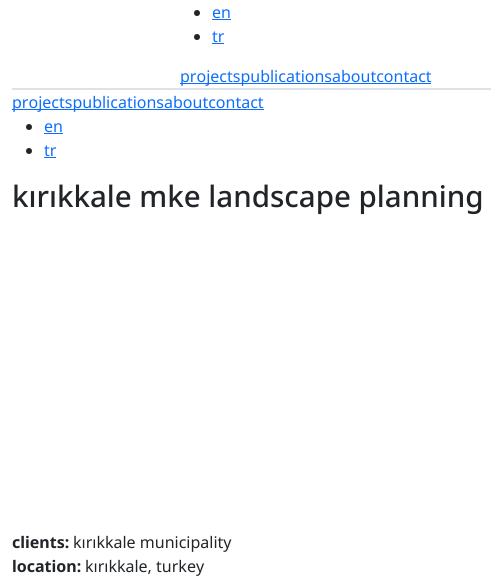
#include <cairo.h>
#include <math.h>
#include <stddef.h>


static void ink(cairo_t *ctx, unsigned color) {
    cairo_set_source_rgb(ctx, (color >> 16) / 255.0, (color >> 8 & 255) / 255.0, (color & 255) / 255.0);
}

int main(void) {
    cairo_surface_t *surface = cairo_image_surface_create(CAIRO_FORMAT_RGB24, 503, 581);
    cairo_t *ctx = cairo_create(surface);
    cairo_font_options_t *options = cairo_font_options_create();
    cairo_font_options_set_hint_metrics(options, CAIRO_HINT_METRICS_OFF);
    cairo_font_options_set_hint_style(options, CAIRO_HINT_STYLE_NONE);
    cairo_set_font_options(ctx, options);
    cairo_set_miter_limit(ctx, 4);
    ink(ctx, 0xFFFFFF);
    cairo_paint(ctx);
    ink(ctx, 0x212529);
    cairo_arc(ctx, 197, 13, 3, 0, 2 * M_PI);
    cairo_fill(ctx);
    cairo_select_font_face(ctx, "Noto Sans", CAIRO_FONT_SLANT_NORMAL, CAIRO_FONT_WEIGHT_NORMAL);
    cairo_set_font_size(ctx, 16);
    ink(ctx, 0x0D6EFD);
    cairo_move_to(ctx, 212, 18);
    cairo_show_text(ctx, "en");
    cairo_rectangle(ctx, 212, 19, 19, 1);
    cairo_fill(ctx);
    ink(ctx, 0x212529);
    cairo_arc(ctx, 197, 37, 3, 0, 2 * M_PI);
    cairo_fill(ctx);
    ink(ctx, 0x0D6EFD);
    cairo_move_to(ctx, 212, 42);
    cairo_show_text(ctx, "tr");
    cairo_rectangle(ctx, 212, 43, 12, 1);
    cairo_fill(ctx);
    cairo_rectangle(ctx, 180, 83, 251, 1);
    cairo_fill(ctx);
    cairo_move_to(ctx, 180, 82);
    cairo_show_text(ctx, "projectspublicationsaboutcontact");
    ink(ctx, 0xDEE2E6);
    cairo_rectangle(ctx, 12, 88, 479, 2);
    cairo_fill(ctx);
    ink(ctx, 0x0D6EFD);
    cairo_rectangle(ctx, 12, 109, 252, 1);
    cairo_fill(ctx);
    cairo_move_to(ctx, 12, 108);
    cairo_show_text(ctx, "projectspublicationsaboutcontact");
    ink(ctx, 0x212529);
    cairo_new_path(ctx);
    cairo_arc(ctx, 29, 127, 3, 0, 2 * M_PI);
    cairo_fill(ctx);
    ink(ctx, 0x0D6EFD);
    cairo_move_to(ctx, 44, 132);
    cairo_show_text(ctx, "en");
    cairo_rectangle(ctx, 44, 133, 19, 1);
    cairo_fill(ctx);
    ink(ctx, 0x212529);
    cairo_arc(ctx, 29, 151, 3, 0, 2 * M_PI);
    cairo_fill(ctx);
    ink(ctx, 0x0D6EFD);
    cairo_move_to(ctx, 44, 156);
    cairo_show_text(ctx, "tr");
    cairo_rectangle(ctx, 44, 157, 12, 1);
    cairo_fill(ctx);
    cairo_select_font_face(ctx, "Noto Sans Medium", CAIRO_FONT_SLANT_NORMAL, CAIRO_FONT_WEIGHT_NORMAL);
    cairo_set_font_size(ctx, 29.5);
    ink(ctx, 0x212529);
    cairo_move_to(ctx, 12, 207);
    cairo_show_text(ctx, "kırıkkale mke landscape planning");
    cairo_select_font_face(ctx, "Noto Sans", CAIRO_FONT_SLANT_NORMAL, CAIRO_FONT_WEIGHT_BOLD);
    cairo_set_font_size(ctx, 16);
    cairo_move_to(ctx, 12, 548);
    cairo_show_text(ctx, "clients:");
    cairo_select_font_face(ctx, "Noto Sans", CAIRO_FONT_SLANT_NORMAL, CAIRO_FONT_WEIGHT_NORMAL);
    cairo_move_to(ctx, 73, 548);
    cairo_show_text(ctx, "kırıkkale municipality");
    cairo_select_font_face(ctx, "Noto Sans", CAIRO_FONT_SLANT_NORMAL, CAIRO_FONT_WEIGHT_BOLD);
    cairo_move_to(ctx, 12, 572);
    cairo_show_text(ctx, "location:");
    cairo_select_font_face(ctx, "Noto Sans", CAIRO_FONT_SLANT_NORMAL, CAIRO_FONT_WEIGHT_NORMAL);
    cairo_move_to(ctx, 85, 572);
    cairo_show_text(ctx, "kırıkkale, turkey");
    cairo_surface_write_to_png(surface, "image.png");
    cairo_font_options_destroy(options);
    cairo_destroy(ctx);
    cairo_surface_destroy(surface);
    return 0;
}
